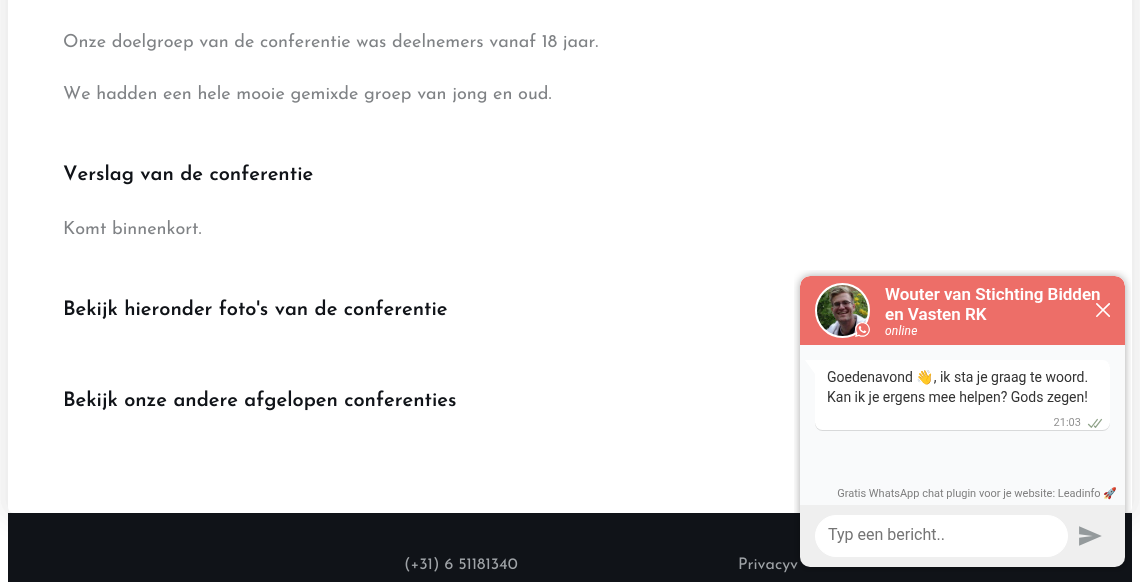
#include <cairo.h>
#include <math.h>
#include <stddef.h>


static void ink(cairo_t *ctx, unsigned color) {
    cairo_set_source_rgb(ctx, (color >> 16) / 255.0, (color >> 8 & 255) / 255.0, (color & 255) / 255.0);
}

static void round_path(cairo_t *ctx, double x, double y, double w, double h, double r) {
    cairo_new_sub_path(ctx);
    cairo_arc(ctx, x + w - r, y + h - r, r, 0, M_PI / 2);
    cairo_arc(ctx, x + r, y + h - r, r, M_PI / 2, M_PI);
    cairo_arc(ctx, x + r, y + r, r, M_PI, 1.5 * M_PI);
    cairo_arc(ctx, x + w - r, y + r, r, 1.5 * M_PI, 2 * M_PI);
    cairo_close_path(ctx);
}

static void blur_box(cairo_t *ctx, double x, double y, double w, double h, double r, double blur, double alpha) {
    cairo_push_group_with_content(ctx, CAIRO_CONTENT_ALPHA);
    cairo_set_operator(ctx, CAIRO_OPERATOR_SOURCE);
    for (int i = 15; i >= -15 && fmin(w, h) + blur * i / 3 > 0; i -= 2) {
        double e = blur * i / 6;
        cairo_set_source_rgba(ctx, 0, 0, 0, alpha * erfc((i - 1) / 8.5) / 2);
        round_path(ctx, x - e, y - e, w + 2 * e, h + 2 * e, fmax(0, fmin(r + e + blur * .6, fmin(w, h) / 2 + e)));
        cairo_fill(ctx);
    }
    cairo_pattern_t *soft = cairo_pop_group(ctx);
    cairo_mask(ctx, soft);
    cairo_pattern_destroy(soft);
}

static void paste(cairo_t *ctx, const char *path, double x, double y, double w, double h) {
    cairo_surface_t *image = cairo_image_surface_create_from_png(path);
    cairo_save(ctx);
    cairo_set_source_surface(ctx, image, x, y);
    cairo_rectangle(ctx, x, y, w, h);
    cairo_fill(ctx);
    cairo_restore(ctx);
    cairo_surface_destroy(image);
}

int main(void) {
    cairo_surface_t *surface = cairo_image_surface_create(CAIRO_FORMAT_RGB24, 1140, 582);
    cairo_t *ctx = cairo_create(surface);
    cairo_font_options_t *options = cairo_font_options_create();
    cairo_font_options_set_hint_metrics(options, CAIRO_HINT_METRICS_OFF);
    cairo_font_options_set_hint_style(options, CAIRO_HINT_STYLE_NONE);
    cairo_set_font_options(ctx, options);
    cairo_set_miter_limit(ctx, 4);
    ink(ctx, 0xFFFFFF);
    cairo_paint(ctx);
    ink(ctx, 0x000000);
    blur_box(ctx, 8, -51, 1124, 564, 6, 15, 0.13);
    ink(ctx, 0xFFFFFF);
    round_path(ctx, 8, -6, 1124, 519, 6);
    cairo_fill(ctx);
    cairo_select_font_face(ctx, "Josefin Sans", CAIRO_FONT_SLANT_NORMAL, CAIRO_FONT_WEIGHT_NORMAL);
    cairo_set_font_size(ctx, 18);
    ink(ctx, 0x7F8285);
    cairo_move_to(ctx, 63, 47);
    cairo_show_text(ctx, "Onze doelgroep van de conferentie was deelnemers vanaf 18 jaar.");
    cairo_move_to(ctx, 63, 99);
    cairo_show_text(ctx, "We hadden een hele mooie gemixde groep van jong en oud.");
    cairo_select_font_face(ctx, "Josefin Sans SemiBold", CAIRO_FONT_SLANT_NORMAL, CAIRO_FONT_WEIGHT_NORMAL);
    cairo_set_font_size(ctx, 20);
    ink(ctx, 0x101318);
    cairo_move_to(ctx, 63, 180);
    cairo_show_text(ctx, "Verslag van de conferentie");
    cairo_select_font_face(ctx, "Josefin Sans", CAIRO_FONT_SLANT_NORMAL, CAIRO_FONT_WEIGHT_NORMAL);
    cairo_set_font_size(ctx, 18);
    ink(ctx, 0x7F8285);
    cairo_move_to(ctx, 63, 234);
    cairo_show_text(ctx, "Komt binnenkort.");
    cairo_select_font_face(ctx, "Josefin Sans SemiBold", CAIRO_FONT_SLANT_NORMAL, CAIRO_FONT_WEIGHT_NORMAL);
    cairo_set_font_size(ctx, 20);
    ink(ctx, 0x101318);
    cairo_move_to(ctx, 63, 315);
    cairo_show_text(ctx, "Bekijk hieronder foto's van de conferentie");
    cairo_move_to(ctx, 63, 406);
    cairo_show_text(ctx, "Bekijk onze andere afgelopen conferenties");
    cairo_rectangle(ctx, 8, 513, 1124, 69);
    cairo_fill(ctx);
    cairo_select_font_face(ctx, "Josefin Sans", CAIRO_FONT_SLANT_NORMAL, CAIRO_FONT_WEIGHT_NORMAL);
    cairo_set_font_size(ctx, 16);
    ink(ctx, 0x9FA3A7);
    cairo_move_to(ctx, 404, 569);
    cairo_show_text(ctx, "(+31) 6 51181340");
    cairo_move_to(ctx, 738, 569);
    cairo_show_text(ctx, "Privacyv");
    paste(ctx, "media/1.png", 794, 270, 337, 302);
    cairo_surface_write_to_png(surface, "image.png");
    cairo_font_options_destroy(options);
    cairo_destroy(ctx);
    cairo_surface_destroy(surface);
    return 0;
}
